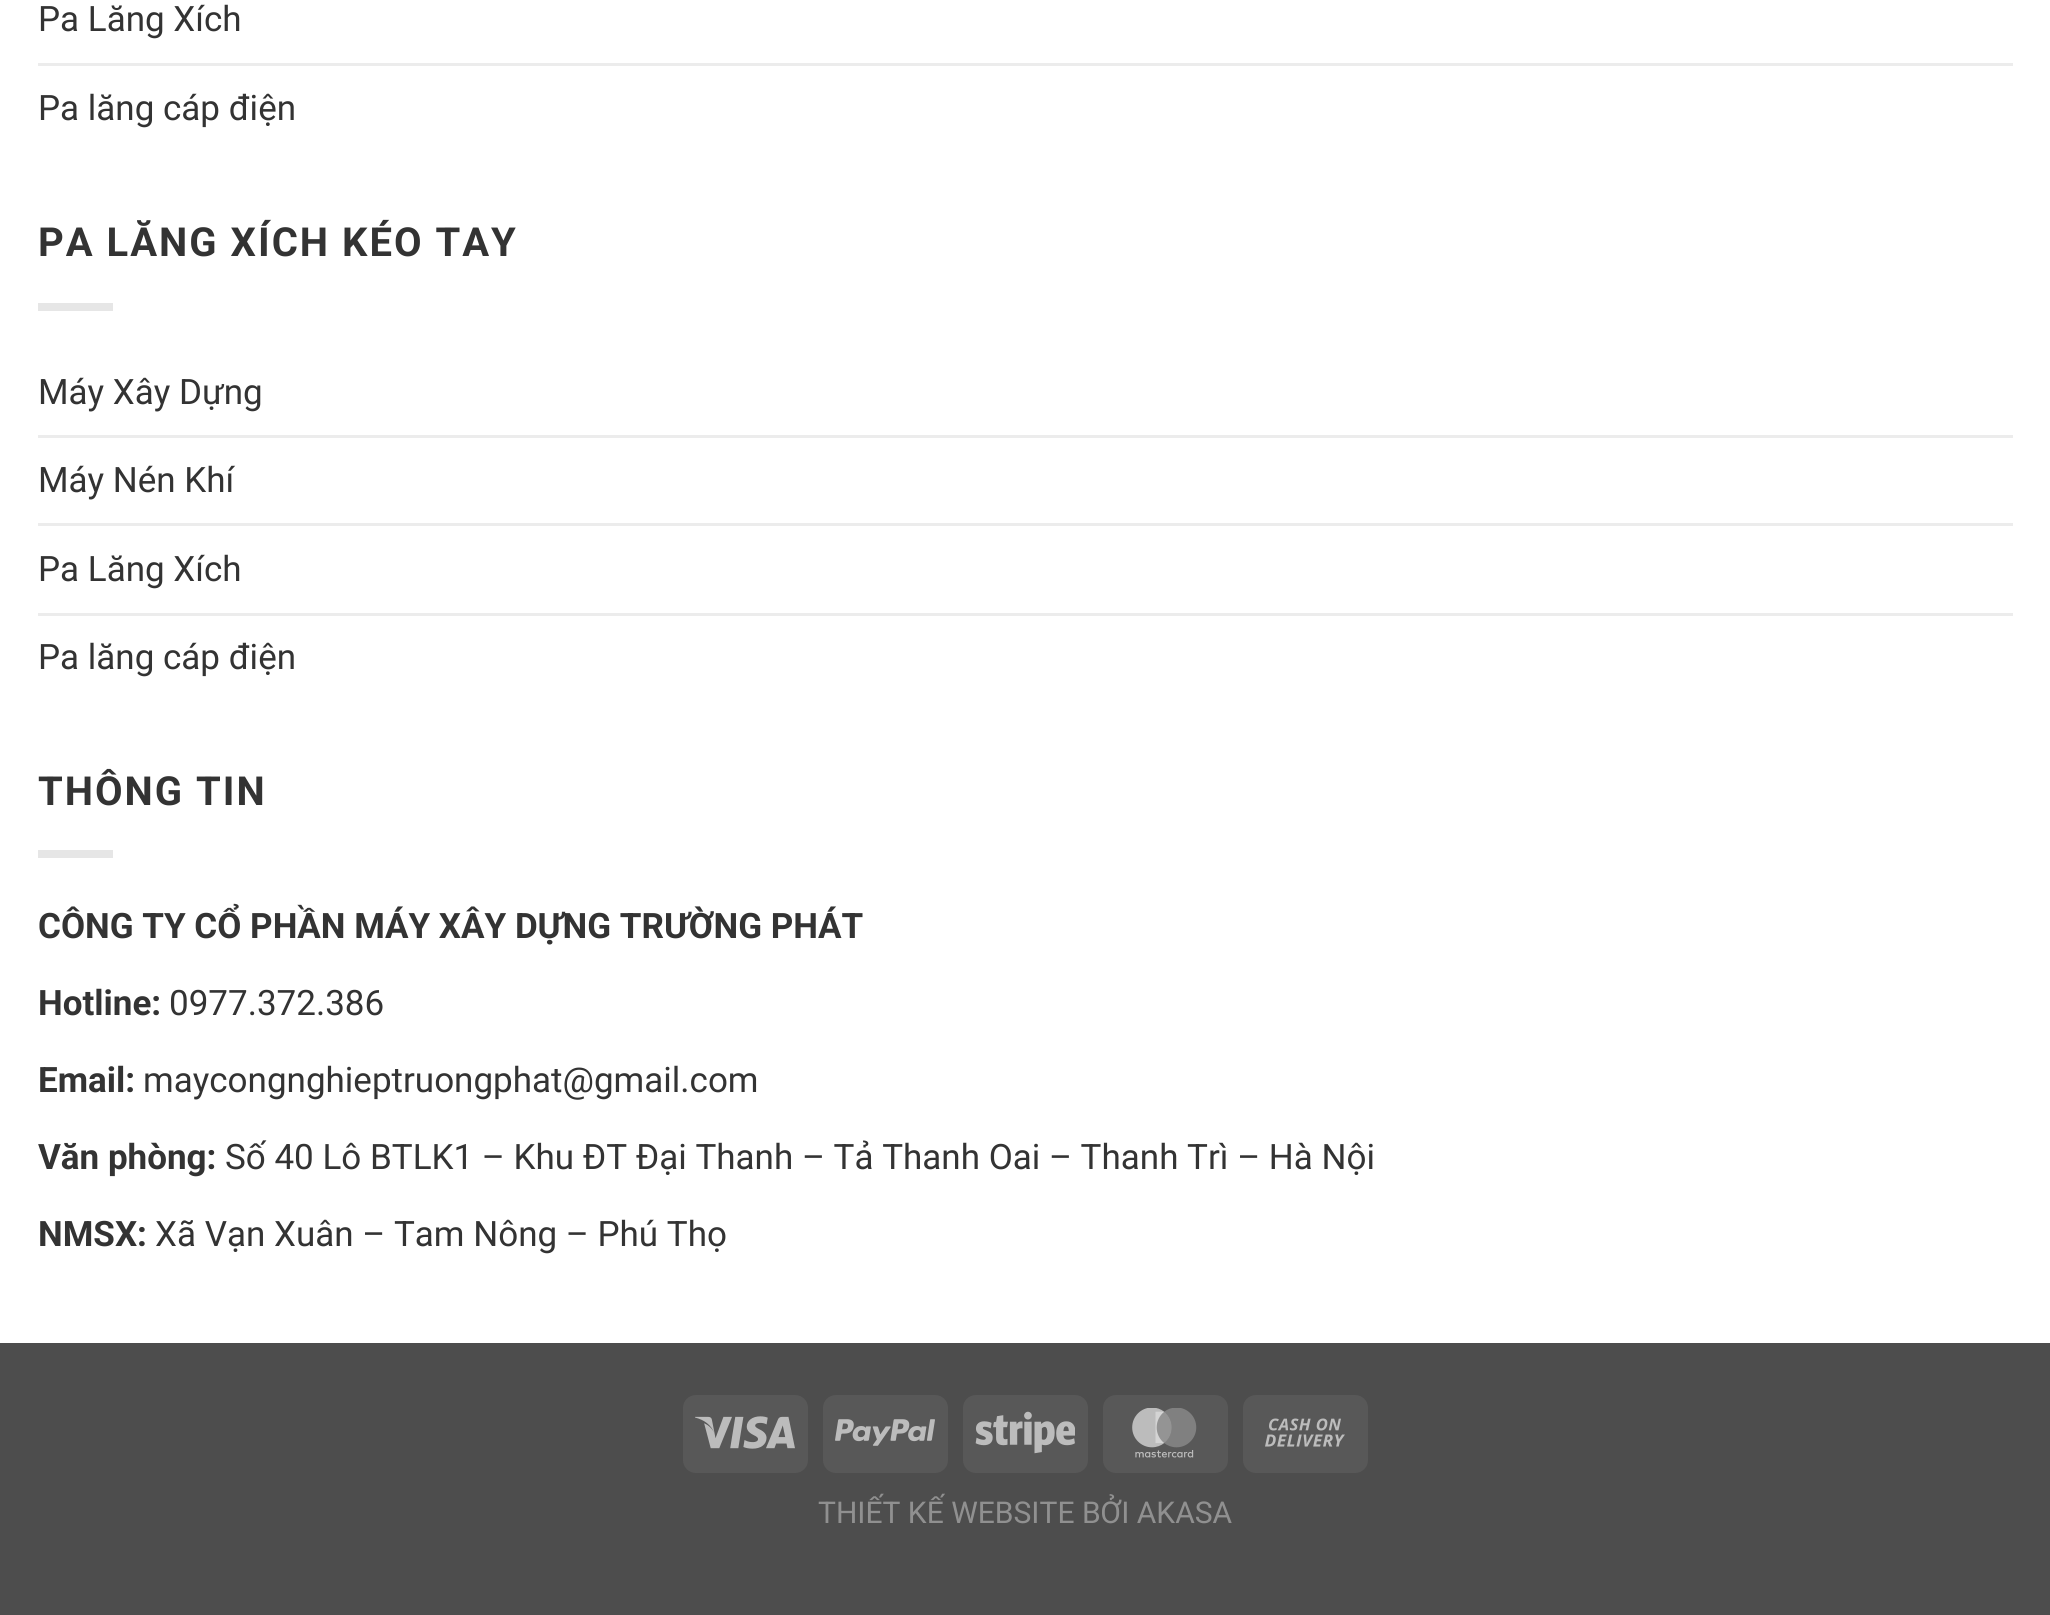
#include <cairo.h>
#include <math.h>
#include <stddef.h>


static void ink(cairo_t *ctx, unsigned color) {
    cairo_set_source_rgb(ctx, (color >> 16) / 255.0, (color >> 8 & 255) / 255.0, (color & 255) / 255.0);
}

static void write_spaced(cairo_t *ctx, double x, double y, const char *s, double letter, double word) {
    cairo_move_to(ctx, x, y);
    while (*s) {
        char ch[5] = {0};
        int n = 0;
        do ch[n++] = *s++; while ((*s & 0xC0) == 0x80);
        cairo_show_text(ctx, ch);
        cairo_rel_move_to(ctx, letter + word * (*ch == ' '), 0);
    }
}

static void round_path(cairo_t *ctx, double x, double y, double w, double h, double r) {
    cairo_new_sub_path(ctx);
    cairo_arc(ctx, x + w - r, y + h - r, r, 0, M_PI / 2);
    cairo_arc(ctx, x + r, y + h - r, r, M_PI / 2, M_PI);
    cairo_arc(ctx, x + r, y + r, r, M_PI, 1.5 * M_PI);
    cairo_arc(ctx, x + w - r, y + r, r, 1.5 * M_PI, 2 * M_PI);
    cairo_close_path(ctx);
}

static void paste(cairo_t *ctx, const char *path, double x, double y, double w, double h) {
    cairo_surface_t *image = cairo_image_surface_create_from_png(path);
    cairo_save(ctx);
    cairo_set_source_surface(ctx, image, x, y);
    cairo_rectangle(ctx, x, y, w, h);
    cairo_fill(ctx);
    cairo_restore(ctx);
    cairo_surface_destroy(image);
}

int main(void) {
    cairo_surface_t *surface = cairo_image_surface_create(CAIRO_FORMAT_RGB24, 2050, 1615);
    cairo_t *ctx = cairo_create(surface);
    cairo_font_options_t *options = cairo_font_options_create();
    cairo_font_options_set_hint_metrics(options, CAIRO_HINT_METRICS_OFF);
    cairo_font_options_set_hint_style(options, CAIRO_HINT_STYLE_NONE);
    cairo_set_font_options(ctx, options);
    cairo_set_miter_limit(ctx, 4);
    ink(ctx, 0xFFFFFF);
    cairo_paint(ctx);
    cairo_select_font_face(ctx, "Roboto", CAIRO_FONT_SLANT_NORMAL, CAIRO_FONT_WEIGHT_NORMAL);
    cairo_set_font_size(ctx, 35);
    ink(ctx, 0x333333);
    cairo_move_to(ctx, 38, 31);
    cairo_show_text(ctx, "Pa Lăng Xích");
    ink(ctx, 0xECECEC);
    cairo_rectangle(ctx, 38, 63, 1975, 3);
    cairo_fill(ctx);
    ink(ctx, 0x333333);
    cairo_move_to(ctx, 38, 120);
    cairo_show_text(ctx, "Pa lăng cáp điện");
    cairo_select_font_face(ctx, "Roboto", CAIRO_FONT_SLANT_NORMAL, CAIRO_FONT_WEIGHT_BOLD);
    cairo_set_font_size(ctx, 40);
    write_spaced(ctx, 38, 256, "PA LĂNG XÍCH KÉO TAY", 2, 0);
    ink(ctx, 0xE6E6E6);
    cairo_rectangle(ctx, 38, 303, 75, 8);
    cairo_fill(ctx);
    cairo_select_font_face(ctx, "Roboto", CAIRO_FONT_SLANT_NORMAL, CAIRO_FONT_WEIGHT_NORMAL);
    cairo_set_font_size(ctx, 35);
    ink(ctx, 0x333333);
    cairo_move_to(ctx, 38, 404);
    cairo_show_text(ctx, "Máy Xây Dựng");
    ink(ctx, 0xECECEC);
    cairo_rectangle(ctx, 38, 435, 1975, 3);
    cairo_fill(ctx);
    ink(ctx, 0x333333);
    cairo_move_to(ctx, 38, 492);
    cairo_show_text(ctx, "Máy Nén Khí");
    ink(ctx, 0xECECEC);
    cairo_rectangle(ctx, 38, 523, 1975, 3);
    cairo_fill(ctx);
    ink(ctx, 0x333333);
    cairo_move_to(ctx, 38, 581);
    cairo_show_text(ctx, "Pa Lăng Xích");
    ink(ctx, 0xECECEC);
    cairo_rectangle(ctx, 38, 613, 1975, 3);
    cairo_fill(ctx);
    ink(ctx, 0x333333);
    cairo_move_to(ctx, 38, 669);
    cairo_show_text(ctx, "Pa lăng cáp điện");
    cairo_select_font_face(ctx, "Roboto", CAIRO_FONT_SLANT_NORMAL, CAIRO_FONT_WEIGHT_BOLD);
    cairo_set_font_size(ctx, 40);
    write_spaced(ctx, 38, 805, "THÔNG TIN", 2, 0);
    ink(ctx, 0xE6E6E6);
    cairo_rectangle(ctx, 38, 850, 75, 8);
    cairo_fill(ctx);
    cairo_set_font_size(ctx, 35);
    ink(ctx, 0x333333);
    cairo_move_to(ctx, 38, 938);
    cairo_show_text(ctx, "CÔNG TY CỔ PHẦN MÁY XÂY DỰNG TRƯỜNG PHÁT");
    cairo_move_to(ctx, 38, 1015);
    cairo_show_text(ctx, "Hotline:");
    cairo_select_font_face(ctx, "Roboto", CAIRO_FONT_SLANT_NORMAL, CAIRO_FONT_WEIGHT_NORMAL);
    cairo_move_to(ctx, 169, 1015);
    cairo_show_text(ctx, "0977.372.386");
    cairo_select_font_face(ctx, "Roboto", CAIRO_FONT_SLANT_NORMAL, CAIRO_FONT_WEIGHT_BOLD);
    cairo_move_to(ctx, 38, 1092);
    cairo_show_text(ctx, "Email:");
    cairo_select_font_face(ctx, "Roboto", CAIRO_FONT_SLANT_NORMAL, CAIRO_FONT_WEIGHT_NORMAL);
    cairo_move_to(ctx, 143, 1092);
    cairo_show_text(ctx, "maycongnghieptruongphat@gmail.com");
    cairo_select_font_face(ctx, "Roboto", CAIRO_FONT_SLANT_NORMAL, CAIRO_FONT_WEIGHT_BOLD);
    cairo_move_to(ctx, 38, 1169);
    cairo_show_text(ctx, "Văn phòng:");
    cairo_select_font_face(ctx, "Roboto", CAIRO_FONT_SLANT_NORMAL, CAIRO_FONT_WEIGHT_NORMAL);
    cairo_move_to(ctx, 225, 1169);
    cairo_show_text(ctx, "Số 40 Lô BTLK1 – Khu ĐT Đại Thanh – Tả Thanh Oai – Thanh Trì – Hà Nội");
    cairo_select_font_face(ctx, "Roboto", CAIRO_FONT_SLANT_NORMAL, CAIRO_FONT_WEIGHT_BOLD);
    cairo_move_to(ctx, 38, 1246);
    cairo_show_text(ctx, "NMSX:");
    cairo_select_font_face(ctx, "Roboto", CAIRO_FONT_SLANT_NORMAL, CAIRO_FONT_WEIGHT_NORMAL);
    cairo_move_to(ctx, 155, 1246);
    cairo_show_text(ctx, "Xã Vạn Xuân – Tam Nông – Phú Thọ");
    ink(ctx, 0x4D4D4D);
    cairo_rectangle(ctx, 0, 1343, 2050, 272);
    cairo_fill(ctx);
    ink(ctx, 0x585858);
    round_path(ctx, 683, 1395, 125, 78, 13);
    cairo_fill(ctx);
    paste(ctx, "media/1.png", 695, 1416, 100, 33);
    round_path(ctx, 823, 1395, 125, 78, 13);
    cairo_fill(ctx);
    paste(ctx, "media/2.png", 835, 1419, 100, 27);
    round_path(ctx, 963, 1395, 125, 78, 13);
    cairo_fill(ctx);
    paste(ctx, "media/3.png", 975, 1411, 100, 43);
    round_path(ctx, 1103, 1395, 125, 78, 13);
    cairo_fill(ctx);
    paste(ctx, "media/4.png", 1132, 1408, 65, 50);
    round_path(ctx, 1243, 1395, 125, 78, 13);
    cairo_fill(ctx);
    paste(ctx, "media/5.png", 1265, 1418, 80, 29);
    cairo_set_font_size(ctx, 30);
    ink(ctx, 0x909090);
    cairo_move_to(ctx, 818, 1523);
    cairo_show_text(ctx, "THIẾT KẾ WEBSITE BỞI AKASA");
    cairo_surface_write_to_png(surface, "image.png");
    cairo_font_options_destroy(options);
    cairo_destroy(ctx);
    cairo_surface_destroy(surface);
    return 0;
}
